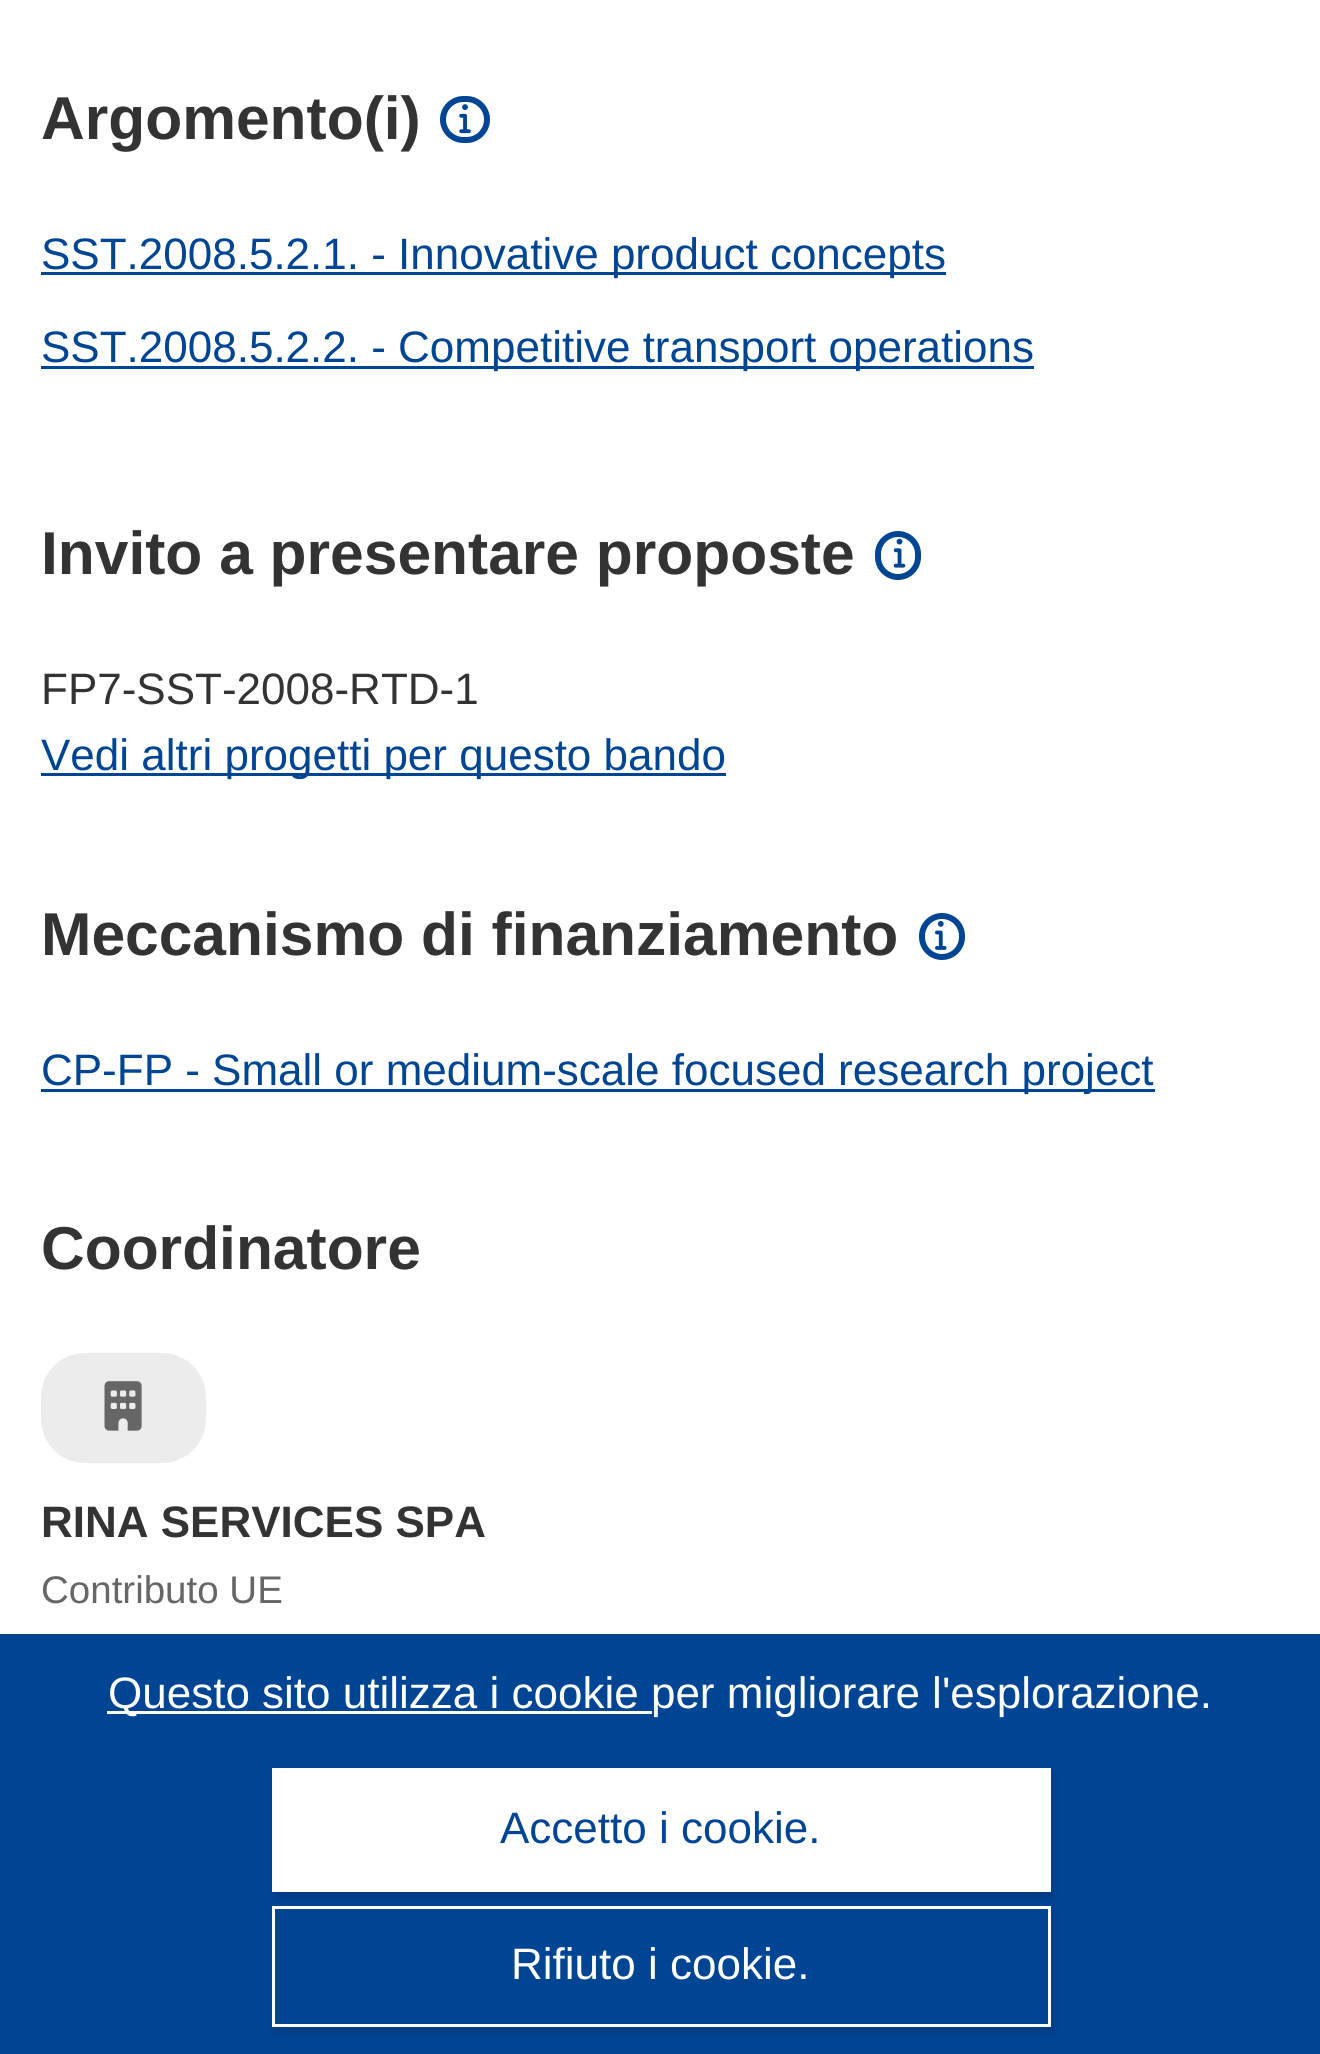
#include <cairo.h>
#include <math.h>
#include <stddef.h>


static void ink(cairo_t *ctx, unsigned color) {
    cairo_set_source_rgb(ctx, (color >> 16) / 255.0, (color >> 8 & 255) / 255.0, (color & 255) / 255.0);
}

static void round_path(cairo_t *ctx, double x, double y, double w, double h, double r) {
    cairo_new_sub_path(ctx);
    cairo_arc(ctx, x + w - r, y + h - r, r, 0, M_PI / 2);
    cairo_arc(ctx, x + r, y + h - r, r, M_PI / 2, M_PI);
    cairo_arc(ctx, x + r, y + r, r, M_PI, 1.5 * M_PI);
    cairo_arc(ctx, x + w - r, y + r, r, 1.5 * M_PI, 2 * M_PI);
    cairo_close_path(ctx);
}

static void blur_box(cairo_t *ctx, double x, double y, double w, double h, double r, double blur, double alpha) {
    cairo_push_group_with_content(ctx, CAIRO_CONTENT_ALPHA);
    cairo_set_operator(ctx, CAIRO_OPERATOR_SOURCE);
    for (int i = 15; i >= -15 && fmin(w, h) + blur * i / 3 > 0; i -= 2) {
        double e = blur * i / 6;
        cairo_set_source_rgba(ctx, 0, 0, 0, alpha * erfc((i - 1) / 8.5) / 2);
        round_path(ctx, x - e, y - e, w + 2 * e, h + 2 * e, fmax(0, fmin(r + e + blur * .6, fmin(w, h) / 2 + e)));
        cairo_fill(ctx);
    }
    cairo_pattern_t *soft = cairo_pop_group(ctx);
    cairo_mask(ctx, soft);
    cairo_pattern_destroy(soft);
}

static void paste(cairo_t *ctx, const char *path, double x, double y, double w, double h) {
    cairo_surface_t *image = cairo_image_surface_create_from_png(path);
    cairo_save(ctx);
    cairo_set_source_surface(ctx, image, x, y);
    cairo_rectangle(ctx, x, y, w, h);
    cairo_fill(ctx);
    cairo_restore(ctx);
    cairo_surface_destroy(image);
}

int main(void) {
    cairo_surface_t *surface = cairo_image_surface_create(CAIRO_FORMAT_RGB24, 1320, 2054);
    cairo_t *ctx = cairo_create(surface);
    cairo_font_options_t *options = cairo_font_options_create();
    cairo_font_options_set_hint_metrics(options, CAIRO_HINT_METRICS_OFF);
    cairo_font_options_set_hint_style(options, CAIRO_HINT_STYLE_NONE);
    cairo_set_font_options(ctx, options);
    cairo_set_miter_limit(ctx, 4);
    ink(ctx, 0xFFFFFF);
    cairo_paint(ctx);
    cairo_select_font_face(ctx, "Liberation Sans", CAIRO_FONT_SLANT_NORMAL, CAIRO_FONT_WEIGHT_BOLD);
    cairo_set_font_size(ctx, 60.5);
    ink(ctx, 0x333333);
    cairo_move_to(ctx, 41, 139);
    cairo_show_text(ctx, "Argomento(i)");
    round_path(ctx, 443, 99, 44, 41, 20.5);
    ink(ctx, 0x004494);
    cairo_set_line_width(ctx, 6);
    cairo_stroke(ctx);
    paste(ctx, "media/1.png", 459, 104, 12, 30);
    cairo_rectangle(ctx, 41, 272, 905, 3);
    cairo_fill(ctx);
    cairo_select_font_face(ctx, "Liberation Sans", CAIRO_FONT_SLANT_NORMAL, CAIRO_FONT_WEIGHT_NORMAL);
    cairo_set_font_size(ctx, 44);
    cairo_move_to(ctx, 41, 269);
    cairo_show_text(ctx, "SST.2008.5.2.1. - Innovative product concepts");
    cairo_rectangle(ctx, 41, 366, 993, 3);
    cairo_fill(ctx);
    cairo_move_to(ctx, 41, 362);
    cairo_show_text(ctx, "SST.2008.5.2.2. - Competitive transport operations");
    cairo_select_font_face(ctx, "Liberation Sans", CAIRO_FONT_SLANT_NORMAL, CAIRO_FONT_WEIGHT_BOLD);
    cairo_set_font_size(ctx, 60.5);
    ink(ctx, 0x333333);
    cairo_move_to(ctx, 41, 574);
    cairo_show_text(ctx, "Invito a presentare proposte");
    round_path(ctx, 878, 534, 40, 43, 20);
    ink(ctx, 0x004494);
    cairo_stroke(ctx);
    paste(ctx, "media/2.png", 893, 538, 13, 30);
    cairo_select_font_face(ctx, "Liberation Sans", CAIRO_FONT_SLANT_NORMAL, CAIRO_FONT_WEIGHT_NORMAL);
    cairo_set_font_size(ctx, 44);
    ink(ctx, 0x333333);
    cairo_move_to(ctx, 41, 704);
    cairo_show_text(ctx, "FP7-SST-2008-RTD-1");
    ink(ctx, 0x004494);
    cairo_rectangle(ctx, 41, 773, 685, 3);
    cairo_fill(ctx);
    cairo_move_to(ctx, 41, 770);
    cairo_show_text(ctx, "Vedi altri progetti per questo bando");
    cairo_select_font_face(ctx, "Liberation Sans", CAIRO_FONT_SLANT_NORMAL, CAIRO_FONT_WEIGHT_BOLD);
    cairo_set_font_size(ctx, 60.5);
    ink(ctx, 0x333333);
    cairo_move_to(ctx, 41, 955);
    cairo_show_text(ctx, "Meccanismo di finanziamento");
    round_path(ctx, 922, 916, 40, 41, 20);
    ink(ctx, 0x004494);
    cairo_stroke(ctx);
    paste(ctx, "media/3.png", 935, 921, 12, 29);
    cairo_rectangle(ctx, 41, 1089, 1114, 3);
    cairo_fill(ctx);
    cairo_select_font_face(ctx, "Liberation Sans", CAIRO_FONT_SLANT_NORMAL, CAIRO_FONT_WEIGHT_NORMAL);
    cairo_set_font_size(ctx, 44);
    cairo_move_to(ctx, 41, 1085);
    cairo_show_text(ctx, "CP-FP - Small or medium-scale focused research project");
    cairo_select_font_face(ctx, "Liberation Sans", CAIRO_FONT_SLANT_NORMAL, CAIRO_FONT_WEIGHT_BOLD);
    cairo_set_font_size(ctx, 60.5);
    ink(ctx, 0x333333);
    cairo_move_to(ctx, 41, 1269);
    cairo_show_text(ctx, "Coordinatore");
    ink(ctx, 0xECECEC);
    round_path(ctx, 41, 1353, 165, 110, 44);
    cairo_fill(ctx);
    paste(ctx, "media/4.png", 104, 1381, 38, 50);
    cairo_set_font_size(ctx, 44);
    ink(ctx, 0x333333);
    cairo_move_to(ctx, 41, 1537);
    cairo_show_text(ctx, "RINA SERVICES SPA");
    cairo_select_font_face(ctx, "Liberation Sans", CAIRO_FONT_SLANT_NORMAL, CAIRO_FONT_WEIGHT_NORMAL);
    cairo_set_font_size(ctx, 38.5);
    ink(ctx, 0x666666);
    cairo_move_to(ctx, 41, 1603);
    cairo_show_text(ctx, "Contributo UE");
    ink(ctx, 0x004494);
    cairo_rectangle(ctx, 0, 1634, 1320, 420);
    cairo_fill(ctx);
    ink(ctx, 0xFFFFFF);
    cairo_rectangle(ctx, 107, 1711, 545, 3);
    cairo_fill(ctx);
    cairo_set_font_size(ctx, 44);
    cairo_move_to(ctx, 108, 1708);
    cairo_show_text(ctx, "Questo sito utilizza i cookie per migliorare l'esplorazione.");
    ink(ctx, 0x000000);
    blur_box(ctx, 275, 1774, 778, 124, 0, 4, 0.15);
    ink(ctx, 0xFFFFFF);
    cairo_rectangle(ctx, 272, 1768, 779, 124);
    cairo_fill(ctx);
    ink(ctx, 0x004494);
    cairo_move_to(ctx, 500, 1843);
    cairo_show_text(ctx, "Accetto i cookie.");
    ink(ctx, 0x000000);
    blur_box(ctx, 275, 1911, 778, 121, 0, 4, 0.15);
    ink(ctx, 0x004494);
    cairo_rectangle(ctx, 273.5, 1907.5, 776, 118);
    cairo_fill_preserve(ctx);
    ink(ctx, 0xFFFFFF);
    cairo_set_line_width(ctx, 3);
    cairo_stroke(ctx);
    cairo_move_to(ctx, 511, 1979);
    cairo_show_text(ctx, "Rifiuto i cookie.");
    cairo_surface_write_to_png(surface, "image.png");
    cairo_font_options_destroy(options);
    cairo_destroy(ctx);
    cairo_surface_destroy(surface);
    return 0;
}
